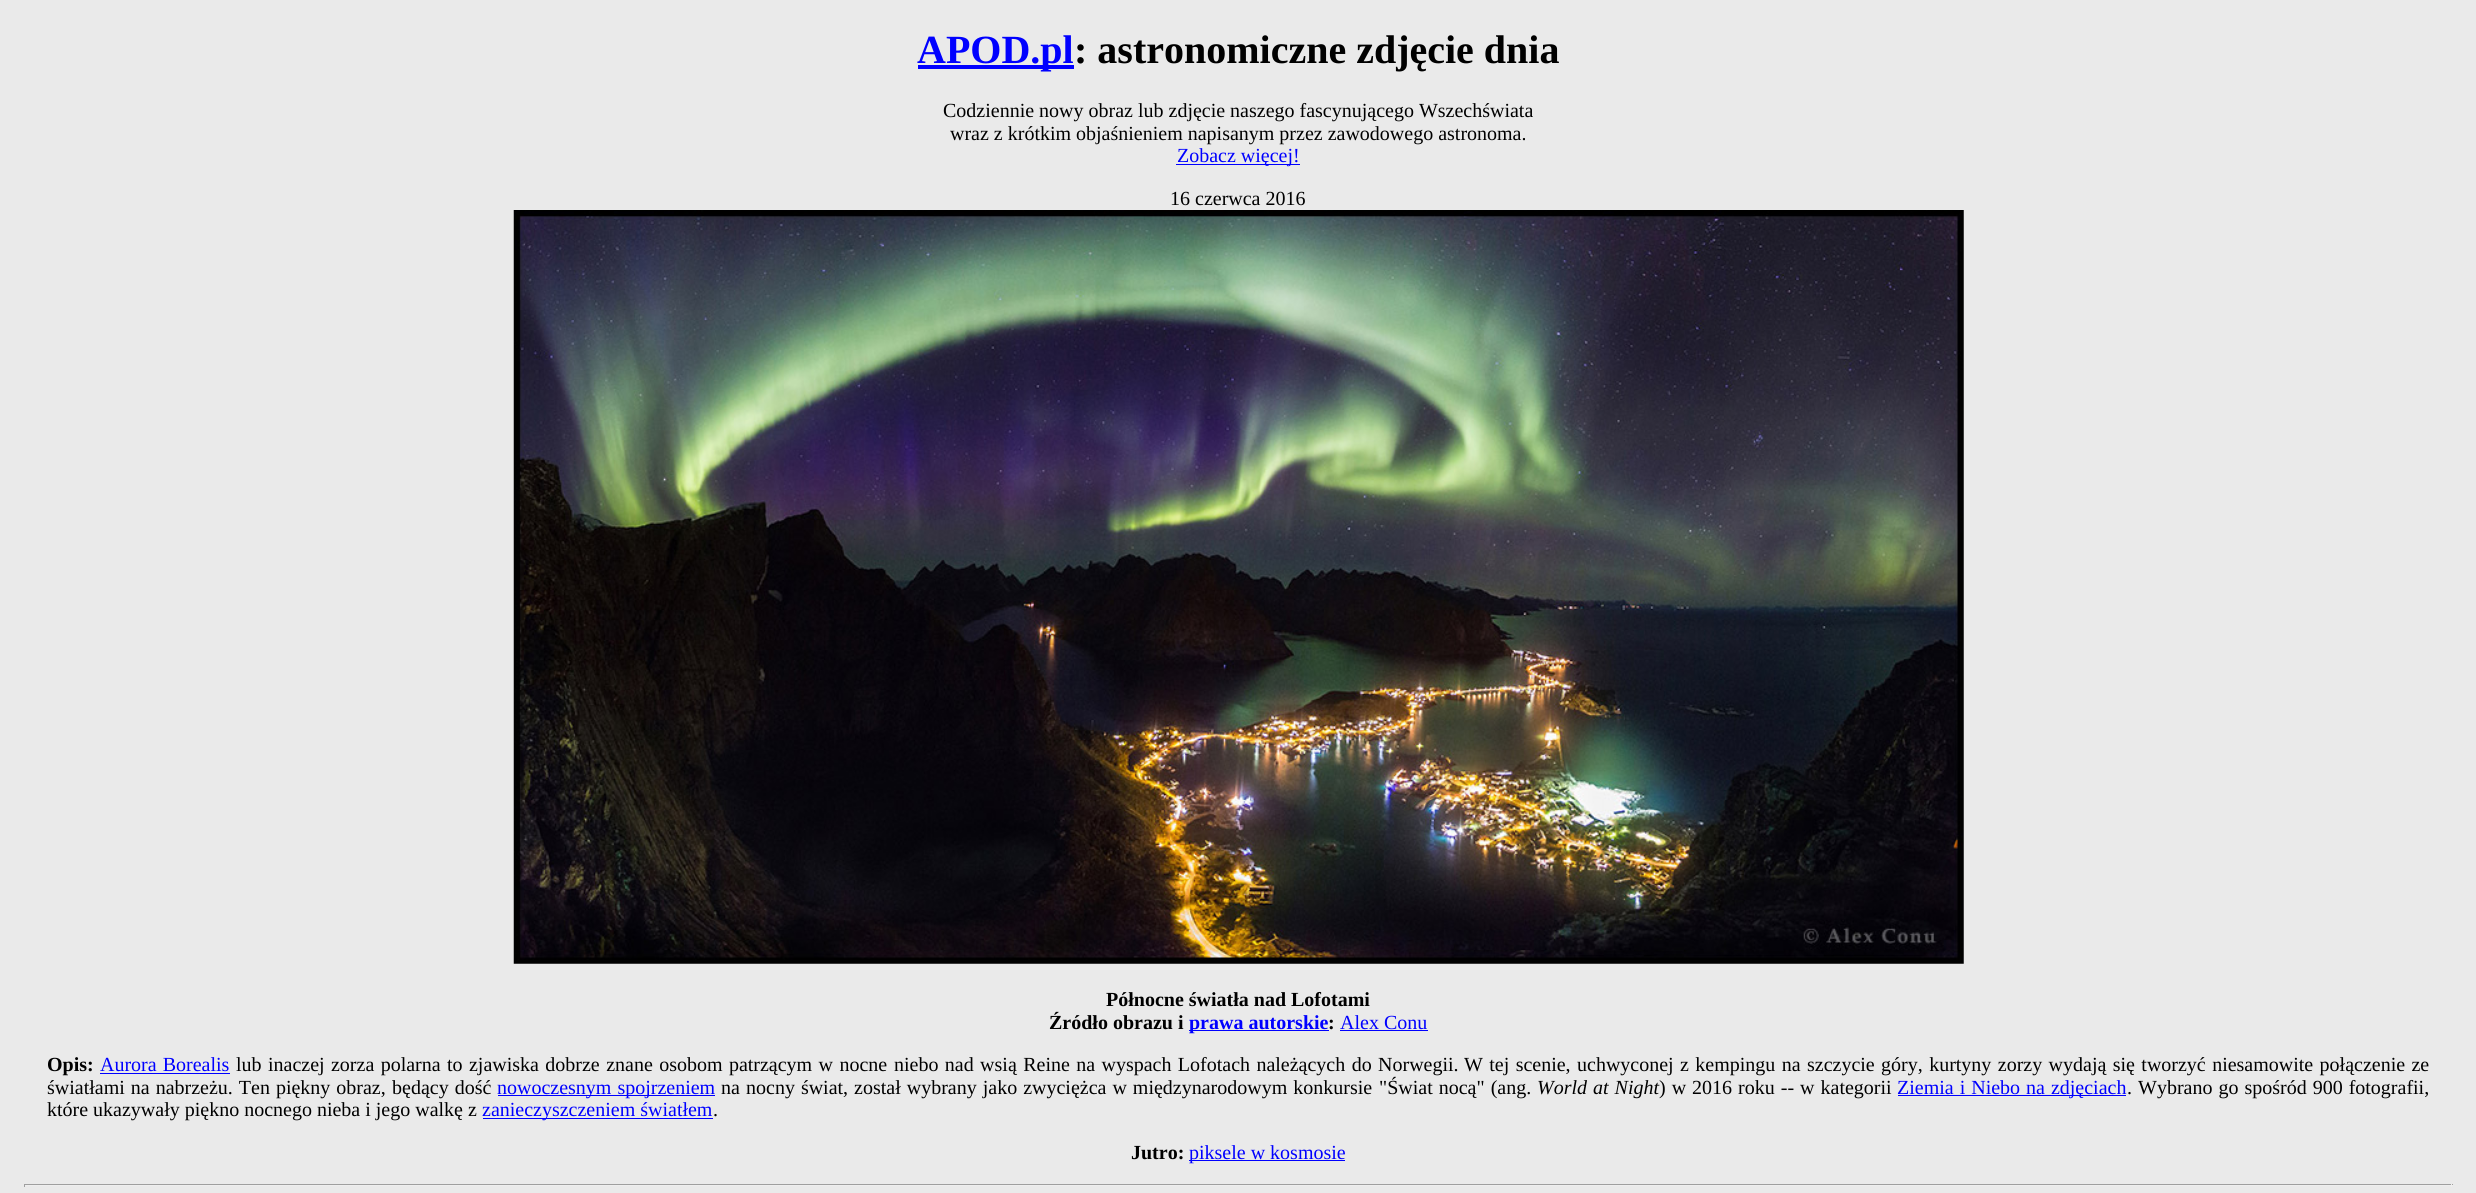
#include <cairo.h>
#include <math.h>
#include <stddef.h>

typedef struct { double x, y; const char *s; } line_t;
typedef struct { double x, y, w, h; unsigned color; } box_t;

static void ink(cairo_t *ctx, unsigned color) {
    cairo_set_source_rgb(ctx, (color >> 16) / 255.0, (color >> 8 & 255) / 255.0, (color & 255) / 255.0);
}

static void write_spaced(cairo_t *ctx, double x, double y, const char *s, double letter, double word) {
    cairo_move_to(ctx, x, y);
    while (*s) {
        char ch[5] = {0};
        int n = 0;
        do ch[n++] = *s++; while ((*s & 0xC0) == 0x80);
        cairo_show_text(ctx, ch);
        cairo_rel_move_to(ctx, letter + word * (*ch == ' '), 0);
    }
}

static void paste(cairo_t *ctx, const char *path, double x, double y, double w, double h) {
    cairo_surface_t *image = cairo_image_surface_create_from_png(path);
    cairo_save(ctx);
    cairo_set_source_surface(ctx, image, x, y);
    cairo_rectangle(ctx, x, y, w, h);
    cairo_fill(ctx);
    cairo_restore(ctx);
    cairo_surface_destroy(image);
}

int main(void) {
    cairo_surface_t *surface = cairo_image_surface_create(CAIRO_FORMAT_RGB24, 2476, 1193);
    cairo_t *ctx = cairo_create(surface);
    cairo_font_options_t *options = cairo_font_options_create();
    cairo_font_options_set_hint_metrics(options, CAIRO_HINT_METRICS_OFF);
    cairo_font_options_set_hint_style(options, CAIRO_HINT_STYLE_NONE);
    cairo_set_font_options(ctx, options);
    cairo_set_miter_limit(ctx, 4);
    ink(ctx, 0xEAEAEA);
    cairo_paint(ctx);
    ink(ctx, 0x0000FF);
    cairo_rectangle(ctx, 918, 65, 156, 4);
    cairo_fill(ctx);
    cairo_select_font_face(ctx, "Liberation Serif", CAIRO_FONT_SLANT_NORMAL, CAIRO_FONT_WEIGHT_BOLD);
    cairo_set_font_size(ctx, 40);
    cairo_move_to(ctx, 917, 63);
    cairo_show_text(ctx, "APOD.pl");
    ink(ctx, 0x000000);
    cairo_move_to(ctx, 1074, 63);
    cairo_show_text(ctx, ": astronomiczne zdjęcie dnia");
    cairo_select_font_face(ctx, "Liberation Serif", CAIRO_FONT_SLANT_NORMAL, CAIRO_FONT_WEIGHT_NORMAL);
    cairo_set_font_size(ctx, 20);
    cairo_move_to(ctx, 943, 117);
    cairo_show_text(ctx, "Codziennie nowy obraz lub zdjęcie naszego fascynującego Wszechświata");
    cairo_move_to(ctx, 950, 140);
    cairo_show_text(ctx, "wraz z krótkim objaśnieniem napisanym przez zawodowego astronoma.");
    ink(ctx, 0x0000FF);
    cairo_rectangle(ctx, 1176, 164, 124, 1);
    cairo_fill(ctx);
    cairo_move_to(ctx, 1177, 162);
    cairo_show_text(ctx, "Zobacz więcej!");
    ink(ctx, 0x000000);
    cairo_move_to(ctx, 1170, 205);
    cairo_show_text(ctx, "16 czerwca 2016");
    paste(ctx, "media/1.png", 513, 210, 1451, 754);
    cairo_select_font_face(ctx, "Liberation Serif", CAIRO_FONT_SLANT_NORMAL, CAIRO_FONT_WEIGHT_BOLD);
    cairo_move_to(ctx, 1106, 1006);
    cairo_show_text(ctx, "Północne światła nad Lofotami");
    cairo_move_to(ctx, 1049, 1029);
    cairo_show_text(ctx, "Źródło obrazu i");
    ink(ctx, 0x0000FF);
    cairo_rectangle(ctx, 1189, 1030, 140, 1);
    cairo_fill(ctx);
    cairo_move_to(ctx, 1189, 1029);
    cairo_show_text(ctx, "prawa autorskie");
    ink(ctx, 0x000000);
    cairo_move_to(ctx, 1328, 1029);
    cairo_show_text(ctx, ":");
    cairo_select_font_face(ctx, "Liberation Serif", CAIRO_FONT_SLANT_NORMAL, CAIRO_FONT_WEIGHT_NORMAL);
    ink(ctx, 0x0000FF);
    cairo_move_to(ctx, 1340, 1029);
    cairo_show_text(ctx, "Alex Conu");
    cairo_rectangle(ctx, 1340, 1030, 88, 1);
    cairo_fill(ctx);
    cairo_select_font_face(ctx, "Liberation Serif", CAIRO_FONT_SLANT_NORMAL, CAIRO_FONT_WEIGHT_BOLD);
    ink(ctx, 0x000000);
    cairo_move_to(ctx, 47, 1071);
    cairo_show_text(ctx, "Opis:");
    cairo_select_font_face(ctx, "Liberation Serif", CAIRO_FONT_SLANT_NORMAL, CAIRO_FONT_WEIGHT_NORMAL);
    ink(ctx, 0x0000FF);
    write_spaced(ctx, 100, 1071, "Aurora Borealis", 0, 1);
    cairo_rectangle(ctx, 100, 1073, 130, 1);
    cairo_fill(ctx);
    ink(ctx, 0x000000);
    {
        static const line_t items[] = {
            {236, 1071, "lub inaczej zorza polarna to zjawiska dobrze znane osobom patrzącym w nocne"},
            {894, 1071, "niebo nad wsią Reine na wyspach Lofotach należących do Norwegii."},
            {1464, 1071, "W tej scenie, uchwyconej z kempingu na szczycie góry, kurtyny zorzy wydają się tworzyć niesamowite połączenie ze"},
        };
        for (size_t i = 0; i < sizeof items / sizeof *items; i++) {
            write_spaced(ctx, items[i].x, items[i].y, items[i].s, 0, 1.4);
        }
    }
    write_spaced(ctx, 47, 1094, "światłami na nabrzeżu. Ten piękny obraz,", 0, 1);
    write_spaced(ctx, 392, 1094, "będący dość", 0, 1);
    ink(ctx, 0x0000FF);
    cairo_rectangle(ctx, 498, 1095, 217, 1);
    cairo_fill(ctx);
    write_spaced(ctx, 497, 1094, "nowoczesnym spojrzeniem", 0, 1);
    ink(ctx, 0x000000);
    cairo_move_to(ctx, 721, 1094);
    cairo_show_text(ctx, "na");
    write_spaced(ctx, 746, 1094, "nocny świat, został wybrany jako zwyciężca w międzynarodowym konkursie", 0, 1);
    write_spaced(ctx, 1379, 1094, "\"Świat nocą\" (ang.", 0, 1);
    cairo_select_font_face(ctx, "Liberation Serif", CAIRO_FONT_SLANT_ITALIC, CAIRO_FONT_WEIGHT_NORMAL);
    write_spaced(ctx, 1537, 1094, "World at Night", 0, 1);
    cairo_select_font_face(ctx, "Liberation Serif", CAIRO_FONT_SLANT_NORMAL, CAIRO_FONT_WEIGHT_NORMAL);
    write_spaced(ctx, 1659, 1094, ") w 2016 roku -- w kategorii", 0, 1);
    ink(ctx, 0x0000FF);
    cairo_rectangle(ctx, 1898, 1095, 228, 1);
    cairo_fill(ctx);
    write_spaced(ctx, 1897, 1094, "Ziemia i Niebo na zdjęciach", 0, 1);
    ink(ctx, 0x000000);
    cairo_move_to(ctx, 2127, 1094);
    cairo_show_text(ctx, ".");
    write_spaced(ctx, 2138, 1094, "Wybrano go spośród 900 fotografii,", 0, 1);
    cairo_move_to(ctx, 47, 1116);
    cairo_show_text(ctx, "które ukazywały piękno nocnego nieba i jego walkę z");
    ink(ctx, 0x0000FF);
    cairo_rectangle(ctx, 483, 1118, 230, 1);
    cairo_fill(ctx);
    cairo_move_to(ctx, 482, 1116);
    cairo_show_text(ctx, "zanieczyszczeniem światłem");
    ink(ctx, 0x000000);
    cairo_move_to(ctx, 713, 1116);
    cairo_show_text(ctx, ".");
    cairo_select_font_face(ctx, "Liberation Serif", CAIRO_FONT_SLANT_NORMAL, CAIRO_FONT_WEIGHT_BOLD);
    cairo_move_to(ctx, 1131, 1159);
    cairo_show_text(ctx, "Jutro:");
    ink(ctx, 0x0000FF);
    cairo_rectangle(ctx, 1189, 1160, 156, 1);
    cairo_fill(ctx);
    cairo_select_font_face(ctx, "Liberation Serif", CAIRO_FONT_SLANT_NORMAL, CAIRO_FONT_WEIGHT_NORMAL);
    cairo_move_to(ctx, 1189, 1159);
    cairo_show_text(ctx, "piksele w kosmosie");
    {
        static const box_t items[] = {
            {24, 1184, 2429, 1, 0x9F9F9F},
            {2451, 1184, 1, 3, 0xEEEEEE},
            {24, 1185, 2429, 1, 0xEEEEEE},
            {24, 1184, 1, 3, 0x9F9F9F},
        };
        for (size_t i = 0; i < sizeof items / sizeof *items; i++) {
            ink(ctx, items[i].color);
            cairo_rectangle(ctx, items[i].x, items[i].y, items[i].w, items[i].h);
            cairo_fill(ctx);
        }
    }
    cairo_surface_write_to_png(surface, "image.png");
    cairo_font_options_destroy(options);
    cairo_destroy(ctx);
    cairo_surface_destroy(surface);
    return 0;
}
